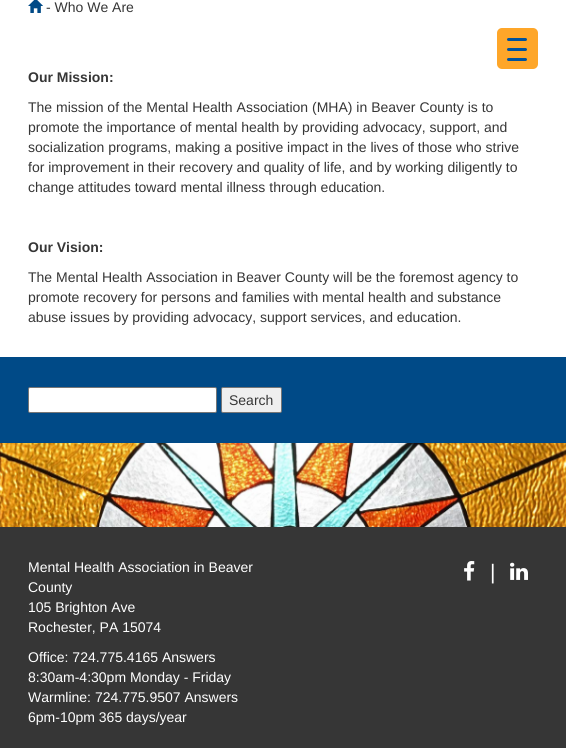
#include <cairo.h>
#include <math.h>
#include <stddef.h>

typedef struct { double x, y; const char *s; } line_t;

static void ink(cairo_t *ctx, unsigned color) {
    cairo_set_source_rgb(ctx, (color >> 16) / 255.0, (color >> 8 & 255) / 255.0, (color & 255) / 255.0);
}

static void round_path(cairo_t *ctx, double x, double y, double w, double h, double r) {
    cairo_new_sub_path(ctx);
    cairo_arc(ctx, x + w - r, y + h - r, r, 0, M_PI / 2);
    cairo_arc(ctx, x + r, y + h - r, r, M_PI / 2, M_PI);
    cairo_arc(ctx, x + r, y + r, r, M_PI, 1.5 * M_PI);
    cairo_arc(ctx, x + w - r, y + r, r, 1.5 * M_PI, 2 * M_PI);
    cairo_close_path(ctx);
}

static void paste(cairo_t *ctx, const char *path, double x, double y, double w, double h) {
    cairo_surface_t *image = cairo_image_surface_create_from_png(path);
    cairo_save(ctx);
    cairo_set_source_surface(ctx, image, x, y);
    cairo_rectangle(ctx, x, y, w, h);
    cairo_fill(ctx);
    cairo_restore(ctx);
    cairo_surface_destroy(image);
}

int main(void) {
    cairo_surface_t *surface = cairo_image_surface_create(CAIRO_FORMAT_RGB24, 566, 748);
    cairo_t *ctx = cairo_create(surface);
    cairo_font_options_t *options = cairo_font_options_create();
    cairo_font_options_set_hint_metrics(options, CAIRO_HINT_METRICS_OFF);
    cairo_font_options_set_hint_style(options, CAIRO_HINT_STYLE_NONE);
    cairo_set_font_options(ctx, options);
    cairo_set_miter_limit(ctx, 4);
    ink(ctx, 0xFFFFFF);
    cairo_paint(ctx);
    paste(ctx, "media/1.png", 28, 0, 15, 13);
    cairo_select_font_face(ctx, "Liberation Sans", CAIRO_FONT_SLANT_NORMAL, CAIRO_FONT_WEIGHT_NORMAL);
    cairo_set_font_size(ctx, 14);
    ink(ctx, 0x363636);
    cairo_move_to(ctx, 46, 12);
    cairo_show_text(ctx, "- Who We Are");
    cairo_select_font_face(ctx, "Liberation Sans", CAIRO_FONT_SLANT_NORMAL, CAIRO_FONT_WEIGHT_BOLD);
    cairo_move_to(ctx, 28, 82);
    cairo_show_text(ctx, "Our Mission:");
    cairo_select_font_face(ctx, "Liberation Sans", CAIRO_FONT_SLANT_NORMAL, CAIRO_FONT_WEIGHT_NORMAL);
    {
        static const line_t items[] = {
            {28, 112, "The mission of the Mental Health Association (MHA) in Beaver County is to"},
            {28, 132, "promote the importance of mental health by providing advocacy, support, and"},
            {28, 152, "socialization programs, making a positive impact in the lives of those who strive"},
            {28, 172, "for improvement in their recovery and quality of life, and by working diligently to"},
            {28, 192, "change attitudes toward mental illness through education."},
        };
        for (size_t i = 0; i < sizeof items / sizeof *items; i++) {
            cairo_move_to(ctx, items[i].x, items[i].y);
            cairo_show_text(ctx, items[i].s);
        }
    }
    cairo_select_font_face(ctx, "Liberation Sans", CAIRO_FONT_SLANT_NORMAL, CAIRO_FONT_WEIGHT_BOLD);
    cairo_move_to(ctx, 28, 252);
    cairo_show_text(ctx, "Our Vision:");
    cairo_select_font_face(ctx, "Liberation Sans", CAIRO_FONT_SLANT_NORMAL, CAIRO_FONT_WEIGHT_NORMAL);
    {
        static const line_t items[] = {
            {28, 282, "The Mental Health Association in Beaver County will be the foremost agency to"},
            {28, 302, "promote recovery for persons and families with mental health and substance"},
            {28, 322, "abuse issues by providing advocacy, support services, and education."},
        };
        for (size_t i = 0; i < sizeof items / sizeof *items; i++) {
            cairo_move_to(ctx, items[i].x, items[i].y);
            cairo_show_text(ctx, items[i].s);
        }
    }
    ink(ctx, 0xFEA629);
    round_path(ctx, 497, 28, 41, 41, 5);
    cairo_fill(ctx);
    ink(ctx, 0x00529B);
    round_path(ctx, 507, 48, 20, 3, 1.5);
    cairo_fill(ctx);
    round_path(ctx, 507, 38, 20, 3, 1.5);
    cairo_fill(ctx);
    round_path(ctx, 507, 58, 20, 3, 1.5);
    cairo_fill(ctx);
    ink(ctx, 0x004A87);
    cairo_rectangle(ctx, 0, 357, 566, 86);
    cairo_fill(ctx);
    ink(ctx, 0xFFFFFF);
    round_path(ctx, 28.5, 387.5, 188, 25, 1.5);
    cairo_fill_preserve(ctx);
    ink(ctx, 0x767676);
    cairo_set_line_width(ctx, 1);
    cairo_stroke(ctx);
    ink(ctx, 0xEFEFEF);
    round_path(ctx, 221.5, 387.5, 60, 25, 1.5);
    cairo_fill_preserve(ctx);
    ink(ctx, 0x767676);
    cairo_stroke(ctx);
    ink(ctx, 0x363636);
    cairo_move_to(ctx, 229, 405);
    cairo_show_text(ctx, "Search");
    paste(ctx, "media/2.png", 0, 443, 566, 84);
    cairo_rectangle(ctx, 0, 527, 566, 221);
    cairo_fill(ctx);
    ink(ctx, 0xFFFFFF);
    {
        static const line_t items[] = {
            {28, 572, "Mental Health Association in Beaver"},
            {28, 592, "County"},
            {28, 612, "105 Brighton Ave"},
            {28, 632, "Rochester, PA 15074"},
            {28, 662, "Office: 724.775.4165 Answers"},
            {28, 682, "8:30am-4:30pm Monday - Friday"},
            {28, 702, "Warmline: 724.775.9507 Answers"},
            {28, 722, "6pm-10pm 365 days/year"},
        };
        for (size_t i = 0; i < sizeof items / sizeof *items; i++) {
            cairo_move_to(ctx, items[i].x, items[i].y);
            cairo_show_text(ctx, items[i].s);
        }
    }
    paste(ctx, "media/3.png", 464, 561, 11, 20);
    cairo_set_font_size(ctx, 21);
    cairo_move_to(ctx, 490, 579);
    cairo_show_text(ctx, "|");
    paste(ctx, "media/4.png", 510, 562, 18, 18);
    cairo_surface_write_to_png(surface, "image.png");
    cairo_font_options_destroy(options);
    cairo_destroy(ctx);
    cairo_surface_destroy(surface);
    return 0;
}
